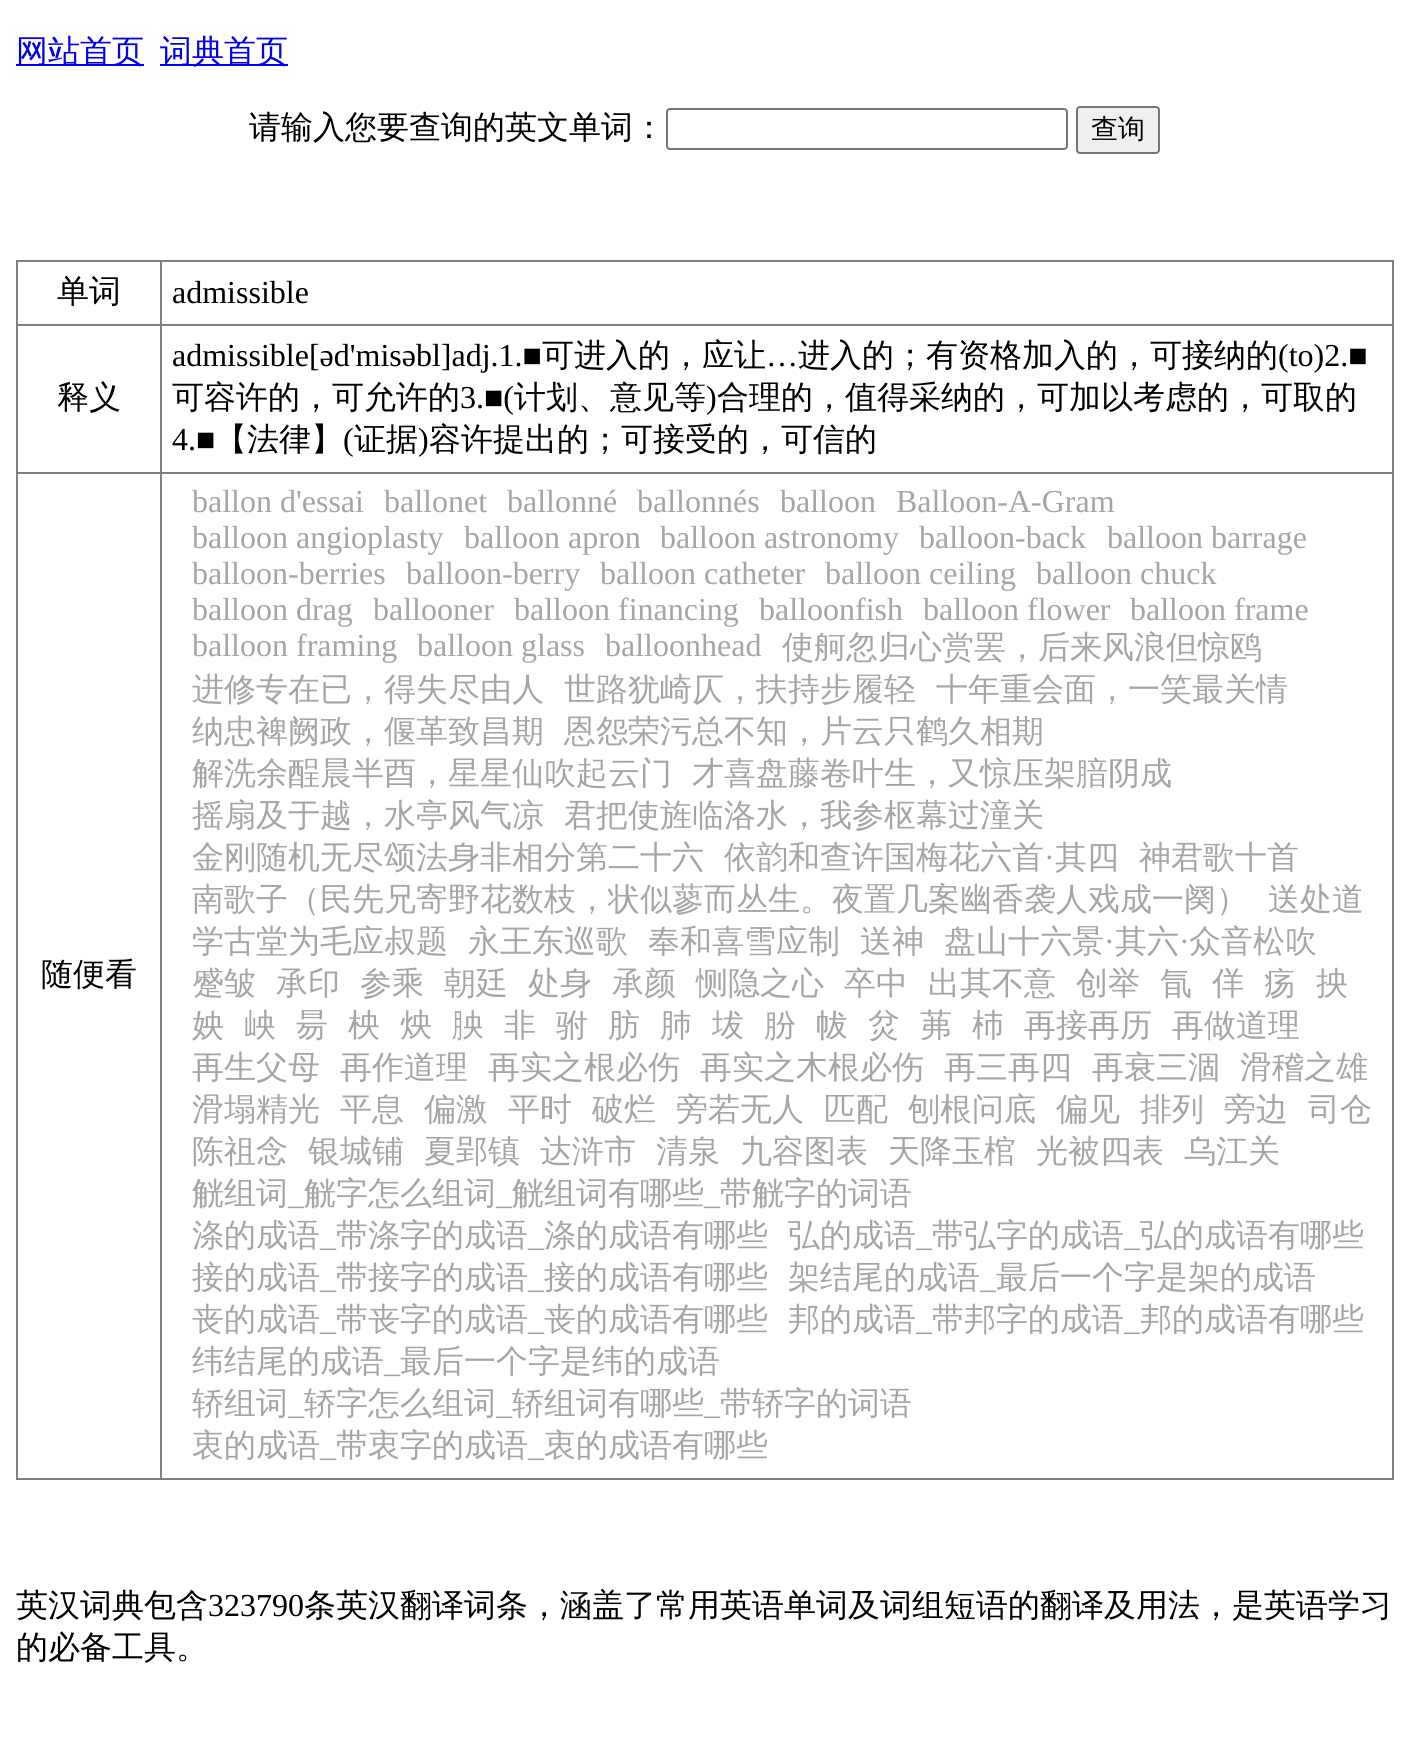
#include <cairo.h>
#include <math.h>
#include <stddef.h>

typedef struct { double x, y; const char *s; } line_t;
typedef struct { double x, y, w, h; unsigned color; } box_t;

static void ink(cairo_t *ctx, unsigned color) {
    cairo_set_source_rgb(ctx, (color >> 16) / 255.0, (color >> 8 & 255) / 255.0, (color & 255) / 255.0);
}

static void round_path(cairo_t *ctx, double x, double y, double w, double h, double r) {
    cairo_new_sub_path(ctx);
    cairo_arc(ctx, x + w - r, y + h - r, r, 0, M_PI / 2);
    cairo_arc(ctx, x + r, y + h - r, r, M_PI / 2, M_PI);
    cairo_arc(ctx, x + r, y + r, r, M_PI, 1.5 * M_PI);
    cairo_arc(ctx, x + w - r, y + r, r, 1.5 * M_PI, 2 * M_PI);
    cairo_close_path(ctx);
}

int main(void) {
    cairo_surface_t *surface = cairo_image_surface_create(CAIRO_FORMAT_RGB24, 1409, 1753);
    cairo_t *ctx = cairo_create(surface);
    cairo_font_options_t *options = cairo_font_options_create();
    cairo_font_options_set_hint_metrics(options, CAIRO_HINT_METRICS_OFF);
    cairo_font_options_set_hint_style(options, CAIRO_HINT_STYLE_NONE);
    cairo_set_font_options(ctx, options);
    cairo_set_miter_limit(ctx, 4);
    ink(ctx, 0xFFFFFF);
    cairo_paint(ctx);
    ink(ctx, 0x0000EE);
    cairo_rectangle(ctx, 16, 64, 128, 2);
    cairo_fill(ctx);
    cairo_select_font_face(ctx, "WenQuanYi Zen Hei Medium", CAIRO_FONT_SLANT_NORMAL, CAIRO_FONT_WEIGHT_NORMAL);
    cairo_set_font_size(ctx, 32);
    cairo_move_to(ctx, 16, 62);
    cairo_show_text(ctx, "网站首页");
    cairo_rectangle(ctx, 160, 64, 128, 2);
    cairo_fill(ctx);
    cairo_move_to(ctx, 160, 62);
    cairo_show_text(ctx, "词典首页");
    ink(ctx, 0x000000);
    cairo_move_to(ctx, 249, 138);
    cairo_show_text(ctx, "请输入您要查询的英文单词：");
    round_path(ctx, 667, 109, 400, 40, 3);
    ink(ctx, 0x767676);
    cairo_stroke(ctx);
    ink(ctx, 0xEFEFEF);
    round_path(ctx, 1077, 107, 82, 46, 3);
    cairo_fill_preserve(ctx);
    ink(ctx, 0x767676);
    cairo_stroke(ctx);
    cairo_set_font_size(ctx, 27);
    ink(ctx, 0x000000);
    cairo_move_to(ctx, 1091, 138);
    cairo_show_text(ctx, "查询");
    {
        static const box_t items[] = {
            {16, 260, 1378, 2, 0x808080},
            {1392, 260, 2, 1220, 0x808080},
            {16, 1478, 1378, 2, 0x808080},
            {16, 260, 2, 1220, 0x808080},
        };
        for (size_t i = 0; i < sizeof items / sizeof *items; i++) {
            ink(ctx, items[i].color);
            cairo_rectangle(ctx, items[i].x, items[i].y, items[i].w, items[i].h);
            cairo_fill(ctx);
        }
    }
    cairo_set_font_size(ctx, 32);
    ink(ctx, 0x000000);
    cairo_move_to(ctx, 57, 302);
    cairo_show_text(ctx, "单词");
    {
        static const box_t items[] = {
            {160, 324, 1234, 2, 0x808080},
            {160, 472, 1234, 2, 0x808080},
            {160, 472, 2, 1008, 0x808080},
            {16, 472, 146, 2, 0x808080},
            {160, 324, 2, 150, 0x808080},
            {16, 324, 146, 2, 0x808080},
            {160, 260, 2, 66, 0x808080},
        };
        for (size_t i = 0; i < sizeof items / sizeof *items; i++) {
            ink(ctx, items[i].color);
            cairo_rectangle(ctx, items[i].x, items[i].y, items[i].w, items[i].h);
            cairo_fill(ctx);
        }
    }
    cairo_select_font_face(ctx, "Liberation Serif", CAIRO_FONT_SLANT_NORMAL, CAIRO_FONT_WEIGHT_NORMAL);
    ink(ctx, 0x000000);
    cairo_move_to(ctx, 172, 303);
    cairo_show_text(ctx, "admissible");
    cairo_select_font_face(ctx, "WenQuanYi Zen Hei Medium", CAIRO_FONT_SLANT_NORMAL, CAIRO_FONT_WEIGHT_NORMAL);
    cairo_move_to(ctx, 57, 408);
    cairo_show_text(ctx, "释义");
    cairo_select_font_face(ctx, "Liberation Serif", CAIRO_FONT_SLANT_NORMAL, CAIRO_FONT_WEIGHT_NORMAL);
    cairo_move_to(ctx, 172, 366);
    cairo_show_text(ctx, "admissible[əd'misəbl]adj.1.■");
    cairo_select_font_face(ctx, "WenQuanYi Zen Hei Medium", CAIRO_FONT_SLANT_NORMAL, CAIRO_FONT_WEIGHT_NORMAL);
    cairo_move_to(ctx, 542, 366);
    cairo_show_text(ctx, "可进入的，应让");
    cairo_select_font_face(ctx, "Liberation Serif", CAIRO_FONT_SLANT_NORMAL, CAIRO_FONT_WEIGHT_NORMAL);
    cairo_move_to(ctx, 766, 366);
    cairo_show_text(ctx, "…");
    cairo_select_font_face(ctx, "WenQuanYi Zen Hei Medium", CAIRO_FONT_SLANT_NORMAL, CAIRO_FONT_WEIGHT_NORMAL);
    cairo_move_to(ctx, 798, 366);
    cairo_show_text(ctx, "进入的；有资格加入的，可接纳的");
    cairo_select_font_face(ctx, "Liberation Serif", CAIRO_FONT_SLANT_NORMAL, CAIRO_FONT_WEIGHT_NORMAL);
    cairo_move_to(ctx, 1278, 366);
    cairo_show_text(ctx, "(to)2.■");
    cairo_select_font_face(ctx, "WenQuanYi Zen Hei Medium", CAIRO_FONT_SLANT_NORMAL, CAIRO_FONT_WEIGHT_NORMAL);
    cairo_move_to(ctx, 172, 408);
    cairo_show_text(ctx, "可容许的，可允许的");
    cairo_select_font_face(ctx, "Liberation Serif", CAIRO_FONT_SLANT_NORMAL, CAIRO_FONT_WEIGHT_NORMAL);
    cairo_move_to(ctx, 460, 408);
    cairo_show_text(ctx, "3.■(");
    cairo_select_font_face(ctx, "WenQuanYi Zen Hei Medium", CAIRO_FONT_SLANT_NORMAL, CAIRO_FONT_WEIGHT_NORMAL);
    cairo_move_to(ctx, 514, 408);
    cairo_show_text(ctx, "计划、意见等");
    cairo_select_font_face(ctx, "Liberation Serif", CAIRO_FONT_SLANT_NORMAL, CAIRO_FONT_WEIGHT_NORMAL);
    cairo_move_to(ctx, 706, 408);
    cairo_show_text(ctx, ")");
    cairo_select_font_face(ctx, "WenQuanYi Zen Hei Medium", CAIRO_FONT_SLANT_NORMAL, CAIRO_FONT_WEIGHT_NORMAL);
    cairo_move_to(ctx, 717, 408);
    cairo_show_text(ctx, "合理的，值得采纳的，可加以考虑的，可取的");
    cairo_select_font_face(ctx, "Liberation Serif", CAIRO_FONT_SLANT_NORMAL, CAIRO_FONT_WEIGHT_NORMAL);
    cairo_move_to(ctx, 172, 450);
    cairo_show_text(ctx, "4.■");
    cairo_select_font_face(ctx, "WenQuanYi Zen Hei Medium", CAIRO_FONT_SLANT_NORMAL, CAIRO_FONT_WEIGHT_NORMAL);
    cairo_move_to(ctx, 215, 450);
    cairo_show_text(ctx, "【法律】");
    cairo_select_font_face(ctx, "Liberation Serif", CAIRO_FONT_SLANT_NORMAL, CAIRO_FONT_WEIGHT_NORMAL);
    cairo_move_to(ctx, 343, 450);
    cairo_show_text(ctx, "(");
    cairo_select_font_face(ctx, "WenQuanYi Zen Hei Medium", CAIRO_FONT_SLANT_NORMAL, CAIRO_FONT_WEIGHT_NORMAL);
    cairo_move_to(ctx, 354, 450);
    cairo_show_text(ctx, "证据");
    cairo_select_font_face(ctx, "Liberation Serif", CAIRO_FONT_SLANT_NORMAL, CAIRO_FONT_WEIGHT_NORMAL);
    cairo_move_to(ctx, 418, 450);
    cairo_show_text(ctx, ")");
    cairo_select_font_face(ctx, "WenQuanYi Zen Hei Medium", CAIRO_FONT_SLANT_NORMAL, CAIRO_FONT_WEIGHT_NORMAL);
    cairo_move_to(ctx, 429, 450);
    cairo_show_text(ctx, "容许提出的；可接受的，可信的");
    cairo_move_to(ctx, 41, 985);
    cairo_show_text(ctx, "随便看");
    cairo_select_font_face(ctx, "Liberation Serif", CAIRO_FONT_SLANT_NORMAL, CAIRO_FONT_WEIGHT_NORMAL);
    ink(ctx, 0xA5A5A5);
    {
        static const line_t items[] = {
            {192, 512, "ballon d'essai"},
            {384, 512, "ballonet"},
            {507, 512, "ballonné"},
            {637, 512, "ballonnés"},
            {780, 512, "balloon"},
            {896, 512, "Balloon-A-Gram"},
            {192, 548, "balloon angioplasty"},
            {464, 548, "balloon apron"},
            {660, 548, "balloon astronomy"},
            {919, 548, "balloon-back"},
            {1107, 548, "balloon barrage"},
            {192, 584, "balloon-berries"},
            {406, 584, "balloon-berry"},
            {600, 584, "balloon catheter"},
            {825, 584, "balloon ceiling"},
            {1036, 584, "balloon chuck"},
            {192, 620, "balloon drag"},
            {373, 620, "ballooner"},
            {514, 620, "balloon financing"},
            {759, 620, "balloonfish"},
            {923, 620, "balloon flower"},
            {1130, 620, "balloon frame"},
            {192, 656, "balloon framing"},
            {417, 656, "balloon glass"},
            {605, 656, "balloonhead"},
        };
        for (size_t i = 0; i < sizeof items / sizeof *items; i++) {
            cairo_move_to(ctx, items[i].x, items[i].y);
            cairo_show_text(ctx, items[i].s);
        }
    }
    cairo_select_font_face(ctx, "WenQuanYi Zen Hei Medium", CAIRO_FONT_SLANT_NORMAL, CAIRO_FONT_WEIGHT_NORMAL);
    {
        static const line_t items[] = {
            {782, 658, "使舸忽归心赏罢，后来风浪但惊鸥"},
            {192, 700, "进修专在已，得失尽由人"},
            {564, 700, "世路犹崎仄，扶持步履轻"},
            {936, 700, "十年重会面，一笑最关情"},
            {192, 742, "纳忠裨阙政，偃革致昌期"},
            {564, 742, "恩怨荣污总不知，片云只鹤久相期"},
            {192, 784, "解洗余酲晨半酉，星星仙吹起云门"},
            {692, 784, "才喜盘藤卷叶生，又惊压架腤阴成"},
            {192, 826, "摇扇及于越，水亭风气凉"},
            {564, 826, "君把使旌临洛水，我参枢幕过潼关"},
            {192, 868, "金刚随机无尽颂法身非相分第二十六"},
            {724, 868, "依韵和查许国梅花六首"},
        };
        for (size_t i = 0; i < sizeof items / sizeof *items; i++) {
            cairo_move_to(ctx, items[i].x, items[i].y);
            cairo_show_text(ctx, items[i].s);
        }
    }
    cairo_select_font_face(ctx, "Liberation Serif", CAIRO_FONT_SLANT_NORMAL, CAIRO_FONT_WEIGHT_NORMAL);
    cairo_move_to(ctx, 1044, 868);
    cairo_show_text(ctx, "·");
    cairo_select_font_face(ctx, "WenQuanYi Zen Hei Medium", CAIRO_FONT_SLANT_NORMAL, CAIRO_FONT_WEIGHT_NORMAL);
    {
        static const line_t items[] = {
            {1055, 868, "其四"},
            {1139, 868, "神君歌十首"},
            {192, 910, "南歌子（民先兄寄野花数枝，状似蓼而丛生。夜置几案幽香袭人戏成一阕）"},
            {1268, 910, "送处道"},
            {192, 952, "学古堂为毛应叔题"},
            {468, 952, "永王东巡歌"},
            {648, 952, "奉和喜雪应制"},
            {860, 952, "送神"},
            {944, 952, "盘山十六景"},
        };
        for (size_t i = 0; i < sizeof items / sizeof *items; i++) {
            cairo_move_to(ctx, items[i].x, items[i].y);
            cairo_show_text(ctx, items[i].s);
        }
    }
    cairo_select_font_face(ctx, "Liberation Serif", CAIRO_FONT_SLANT_NORMAL, CAIRO_FONT_WEIGHT_NORMAL);
    cairo_move_to(ctx, 1104, 952);
    cairo_show_text(ctx, "·");
    cairo_select_font_face(ctx, "WenQuanYi Zen Hei Medium", CAIRO_FONT_SLANT_NORMAL, CAIRO_FONT_WEIGHT_NORMAL);
    cairo_move_to(ctx, 1115, 952);
    cairo_show_text(ctx, "其六");
    cairo_select_font_face(ctx, "Liberation Serif", CAIRO_FONT_SLANT_NORMAL, CAIRO_FONT_WEIGHT_NORMAL);
    cairo_move_to(ctx, 1179, 952);
    cairo_show_text(ctx, "·");
    cairo_select_font_face(ctx, "WenQuanYi Zen Hei Medium", CAIRO_FONT_SLANT_NORMAL, CAIRO_FONT_WEIGHT_NORMAL);
    {
        static const line_t items[] = {
            {1189, 952, "众音松吹"},
            {192, 994, "蹙皱"},
            {276, 994, "承印"},
            {360, 994, "参乘"},
            {444, 994, "朝廷"},
            {528, 994, "处身"},
            {612, 994, "承颜"},
            {696, 994, "恻隐之心"},
            {844, 994, "卒中"},
            {928, 994, "出其不意"},
            {1076, 994, "创举"},
            {1160, 994, "氜"},
            {1212, 994, "佯"},
            {1264, 994, "疡"},
            {1316, 994, "抰"},
            {192, 1036, "姎"},
            {244, 1036, "岟"},
            {296, 1036, "昜"},
            {348, 1036, "柍"},
            {400, 1036, "炴"},
            {452, 1036, "胦"},
            {504, 1036, "非"},
            {556, 1036, "驸"},
            {608, 1036, "肪"},
            {660, 1036, "肺"},
            {712, 1036, "坺"},
            {764, 1036, "朌"},
            {816, 1036, "帗"},
            {868, 1036, "炃"},
            {920, 1036, "茀"},
            {972, 1036, "杮"},
            {1024, 1036, "再接再历"},
            {1172, 1036, "再做道理"},
            {192, 1078, "再生父母"},
            {340, 1078, "再作道理"},
            {488, 1078, "再实之根必伤"},
            {700, 1078, "再实之木根必伤"},
            {944, 1078, "再三再四"},
            {1092, 1078, "再衰三涸"},
            {1240, 1078, "滑稽之雄"},
            {192, 1120, "滑塌精光"},
            {340, 1120, "平息"},
            {424, 1120, "偏激"},
            {508, 1120, "平时"},
            {592, 1120, "破烂"},
            {676, 1120, "旁若无人"},
            {824, 1120, "匹配"},
            {908, 1120, "刨根问底"},
            {1056, 1120, "偏见"},
            {1140, 1120, "排列"},
            {1224, 1120, "旁边"},
            {1308, 1120, "司仓"},
            {192, 1162, "陈祖念"},
            {308, 1162, "银城铺"},
            {424, 1162, "夏郢镇"},
            {540, 1162, "达浒市"},
            {656, 1162, "清泉"},
            {740, 1162, "九容图表"},
            {888, 1162, "天降玉棺"},
            {1036, 1162, "光被四表"},
            {1184, 1162, "乌江关"},
            {192, 1204, "觥组词"},
        };
        for (size_t i = 0; i < sizeof items / sizeof *items; i++) {
            cairo_move_to(ctx, items[i].x, items[i].y);
            cairo_show_text(ctx, items[i].s);
        }
    }
    cairo_select_font_face(ctx, "Liberation Serif", CAIRO_FONT_SLANT_NORMAL, CAIRO_FONT_WEIGHT_NORMAL);
    cairo_move_to(ctx, 288, 1204);
    cairo_show_text(ctx, "_");
    cairo_select_font_face(ctx, "WenQuanYi Zen Hei Medium", CAIRO_FONT_SLANT_NORMAL, CAIRO_FONT_WEIGHT_NORMAL);
    cairo_move_to(ctx, 304, 1204);
    cairo_show_text(ctx, "觥字怎么组词");
    cairo_select_font_face(ctx, "Liberation Serif", CAIRO_FONT_SLANT_NORMAL, CAIRO_FONT_WEIGHT_NORMAL);
    cairo_move_to(ctx, 496, 1204);
    cairo_show_text(ctx, "_");
    cairo_select_font_face(ctx, "WenQuanYi Zen Hei Medium", CAIRO_FONT_SLANT_NORMAL, CAIRO_FONT_WEIGHT_NORMAL);
    cairo_move_to(ctx, 512, 1204);
    cairo_show_text(ctx, "觥组词有哪些");
    cairo_select_font_face(ctx, "Liberation Serif", CAIRO_FONT_SLANT_NORMAL, CAIRO_FONT_WEIGHT_NORMAL);
    cairo_move_to(ctx, 704, 1204);
    cairo_show_text(ctx, "_");
    cairo_select_font_face(ctx, "WenQuanYi Zen Hei Medium", CAIRO_FONT_SLANT_NORMAL, CAIRO_FONT_WEIGHT_NORMAL);
    cairo_move_to(ctx, 720, 1204);
    cairo_show_text(ctx, "带觥字的词语");
    cairo_move_to(ctx, 192, 1246);
    cairo_show_text(ctx, "涤的成语");
    cairo_select_font_face(ctx, "Liberation Serif", CAIRO_FONT_SLANT_NORMAL, CAIRO_FONT_WEIGHT_NORMAL);
    cairo_move_to(ctx, 320, 1246);
    cairo_show_text(ctx, "_");
    cairo_select_font_face(ctx, "WenQuanYi Zen Hei Medium", CAIRO_FONT_SLANT_NORMAL, CAIRO_FONT_WEIGHT_NORMAL);
    cairo_move_to(ctx, 336, 1246);
    cairo_show_text(ctx, "带涤字的成语");
    cairo_select_font_face(ctx, "Liberation Serif", CAIRO_FONT_SLANT_NORMAL, CAIRO_FONT_WEIGHT_NORMAL);
    cairo_move_to(ctx, 528, 1246);
    cairo_show_text(ctx, "_");
    cairo_select_font_face(ctx, "WenQuanYi Zen Hei Medium", CAIRO_FONT_SLANT_NORMAL, CAIRO_FONT_WEIGHT_NORMAL);
    cairo_move_to(ctx, 544, 1246);
    cairo_show_text(ctx, "涤的成语有哪些");
    cairo_move_to(ctx, 788, 1246);
    cairo_show_text(ctx, "弘的成语");
    cairo_select_font_face(ctx, "Liberation Serif", CAIRO_FONT_SLANT_NORMAL, CAIRO_FONT_WEIGHT_NORMAL);
    cairo_move_to(ctx, 916, 1246);
    cairo_show_text(ctx, "_");
    cairo_select_font_face(ctx, "WenQuanYi Zen Hei Medium", CAIRO_FONT_SLANT_NORMAL, CAIRO_FONT_WEIGHT_NORMAL);
    cairo_move_to(ctx, 932, 1246);
    cairo_show_text(ctx, "带弘字的成语");
    cairo_select_font_face(ctx, "Liberation Serif", CAIRO_FONT_SLANT_NORMAL, CAIRO_FONT_WEIGHT_NORMAL);
    cairo_move_to(ctx, 1124, 1246);
    cairo_show_text(ctx, "_");
    cairo_select_font_face(ctx, "WenQuanYi Zen Hei Medium", CAIRO_FONT_SLANT_NORMAL, CAIRO_FONT_WEIGHT_NORMAL);
    cairo_move_to(ctx, 1140, 1246);
    cairo_show_text(ctx, "弘的成语有哪些");
    cairo_move_to(ctx, 192, 1288);
    cairo_show_text(ctx, "接的成语");
    cairo_select_font_face(ctx, "Liberation Serif", CAIRO_FONT_SLANT_NORMAL, CAIRO_FONT_WEIGHT_NORMAL);
    cairo_move_to(ctx, 320, 1288);
    cairo_show_text(ctx, "_");
    cairo_select_font_face(ctx, "WenQuanYi Zen Hei Medium", CAIRO_FONT_SLANT_NORMAL, CAIRO_FONT_WEIGHT_NORMAL);
    cairo_move_to(ctx, 336, 1288);
    cairo_show_text(ctx, "带接字的成语");
    cairo_select_font_face(ctx, "Liberation Serif", CAIRO_FONT_SLANT_NORMAL, CAIRO_FONT_WEIGHT_NORMAL);
    cairo_move_to(ctx, 528, 1288);
    cairo_show_text(ctx, "_");
    cairo_select_font_face(ctx, "WenQuanYi Zen Hei Medium", CAIRO_FONT_SLANT_NORMAL, CAIRO_FONT_WEIGHT_NORMAL);
    cairo_move_to(ctx, 544, 1288);
    cairo_show_text(ctx, "接的成语有哪些");
    cairo_move_to(ctx, 788, 1288);
    cairo_show_text(ctx, "架结尾的成语");
    cairo_select_font_face(ctx, "Liberation Serif", CAIRO_FONT_SLANT_NORMAL, CAIRO_FONT_WEIGHT_NORMAL);
    cairo_move_to(ctx, 980, 1288);
    cairo_show_text(ctx, "_");
    cairo_select_font_face(ctx, "WenQuanYi Zen Hei Medium", CAIRO_FONT_SLANT_NORMAL, CAIRO_FONT_WEIGHT_NORMAL);
    cairo_move_to(ctx, 996, 1288);
    cairo_show_text(ctx, "最后一个字是架的成语");
    cairo_move_to(ctx, 192, 1330);
    cairo_show_text(ctx, "丧的成语");
    cairo_select_font_face(ctx, "Liberation Serif", CAIRO_FONT_SLANT_NORMAL, CAIRO_FONT_WEIGHT_NORMAL);
    cairo_move_to(ctx, 320, 1330);
    cairo_show_text(ctx, "_");
    cairo_select_font_face(ctx, "WenQuanYi Zen Hei Medium", CAIRO_FONT_SLANT_NORMAL, CAIRO_FONT_WEIGHT_NORMAL);
    cairo_move_to(ctx, 336, 1330);
    cairo_show_text(ctx, "带丧字的成语");
    cairo_select_font_face(ctx, "Liberation Serif", CAIRO_FONT_SLANT_NORMAL, CAIRO_FONT_WEIGHT_NORMAL);
    cairo_move_to(ctx, 528, 1330);
    cairo_show_text(ctx, "_");
    cairo_select_font_face(ctx, "WenQuanYi Zen Hei Medium", CAIRO_FONT_SLANT_NORMAL, CAIRO_FONT_WEIGHT_NORMAL);
    cairo_move_to(ctx, 544, 1330);
    cairo_show_text(ctx, "丧的成语有哪些");
    cairo_move_to(ctx, 788, 1330);
    cairo_show_text(ctx, "邦的成语");
    cairo_select_font_face(ctx, "Liberation Serif", CAIRO_FONT_SLANT_NORMAL, CAIRO_FONT_WEIGHT_NORMAL);
    cairo_move_to(ctx, 916, 1330);
    cairo_show_text(ctx, "_");
    cairo_select_font_face(ctx, "WenQuanYi Zen Hei Medium", CAIRO_FONT_SLANT_NORMAL, CAIRO_FONT_WEIGHT_NORMAL);
    cairo_move_to(ctx, 932, 1330);
    cairo_show_text(ctx, "带邦字的成语");
    cairo_select_font_face(ctx, "Liberation Serif", CAIRO_FONT_SLANT_NORMAL, CAIRO_FONT_WEIGHT_NORMAL);
    cairo_move_to(ctx, 1124, 1330);
    cairo_show_text(ctx, "_");
    cairo_select_font_face(ctx, "WenQuanYi Zen Hei Medium", CAIRO_FONT_SLANT_NORMAL, CAIRO_FONT_WEIGHT_NORMAL);
    cairo_move_to(ctx, 1140, 1330);
    cairo_show_text(ctx, "邦的成语有哪些");
    cairo_move_to(ctx, 192, 1372);
    cairo_show_text(ctx, "纬结尾的成语");
    cairo_select_font_face(ctx, "Liberation Serif", CAIRO_FONT_SLANT_NORMAL, CAIRO_FONT_WEIGHT_NORMAL);
    cairo_move_to(ctx, 384, 1372);
    cairo_show_text(ctx, "_");
    cairo_select_font_face(ctx, "WenQuanYi Zen Hei Medium", CAIRO_FONT_SLANT_NORMAL, CAIRO_FONT_WEIGHT_NORMAL);
    cairo_move_to(ctx, 400, 1372);
    cairo_show_text(ctx, "最后一个字是纬的成语");
    cairo_move_to(ctx, 192, 1414);
    cairo_show_text(ctx, "轿组词");
    cairo_select_font_face(ctx, "Liberation Serif", CAIRO_FONT_SLANT_NORMAL, CAIRO_FONT_WEIGHT_NORMAL);
    cairo_move_to(ctx, 288, 1414);
    cairo_show_text(ctx, "_");
    cairo_select_font_face(ctx, "WenQuanYi Zen Hei Medium", CAIRO_FONT_SLANT_NORMAL, CAIRO_FONT_WEIGHT_NORMAL);
    cairo_move_to(ctx, 304, 1414);
    cairo_show_text(ctx, "轿字怎么组词");
    cairo_select_font_face(ctx, "Liberation Serif", CAIRO_FONT_SLANT_NORMAL, CAIRO_FONT_WEIGHT_NORMAL);
    cairo_move_to(ctx, 496, 1414);
    cairo_show_text(ctx, "_");
    cairo_select_font_face(ctx, "WenQuanYi Zen Hei Medium", CAIRO_FONT_SLANT_NORMAL, CAIRO_FONT_WEIGHT_NORMAL);
    cairo_move_to(ctx, 512, 1414);
    cairo_show_text(ctx, "轿组词有哪些");
    cairo_select_font_face(ctx, "Liberation Serif", CAIRO_FONT_SLANT_NORMAL, CAIRO_FONT_WEIGHT_NORMAL);
    cairo_move_to(ctx, 704, 1414);
    cairo_show_text(ctx, "_");
    cairo_select_font_face(ctx, "WenQuanYi Zen Hei Medium", CAIRO_FONT_SLANT_NORMAL, CAIRO_FONT_WEIGHT_NORMAL);
    cairo_move_to(ctx, 720, 1414);
    cairo_show_text(ctx, "带轿字的词语");
    cairo_move_to(ctx, 192, 1456);
    cairo_show_text(ctx, "衷的成语");
    cairo_select_font_face(ctx, "Liberation Serif", CAIRO_FONT_SLANT_NORMAL, CAIRO_FONT_WEIGHT_NORMAL);
    cairo_move_to(ctx, 320, 1456);
    cairo_show_text(ctx, "_");
    cairo_select_font_face(ctx, "WenQuanYi Zen Hei Medium", CAIRO_FONT_SLANT_NORMAL, CAIRO_FONT_WEIGHT_NORMAL);
    cairo_move_to(ctx, 336, 1456);
    cairo_show_text(ctx, "带衷字的成语");
    cairo_select_font_face(ctx, "Liberation Serif", CAIRO_FONT_SLANT_NORMAL, CAIRO_FONT_WEIGHT_NORMAL);
    cairo_move_to(ctx, 528, 1456);
    cairo_show_text(ctx, "_");
    cairo_select_font_face(ctx, "WenQuanYi Zen Hei Medium", CAIRO_FONT_SLANT_NORMAL, CAIRO_FONT_WEIGHT_NORMAL);
    cairo_move_to(ctx, 544, 1456);
    cairo_show_text(ctx, "衷的成语有哪些");
    ink(ctx, 0x000000);
    cairo_move_to(ctx, 16, 1616);
    cairo_show_text(ctx, "英汉词典包含");
    cairo_select_font_face(ctx, "Liberation Serif", CAIRO_FONT_SLANT_NORMAL, CAIRO_FONT_WEIGHT_NORMAL);
    cairo_move_to(ctx, 208, 1616);
    cairo_show_text(ctx, "323790");
    cairo_select_font_face(ctx, "WenQuanYi Zen Hei Medium", CAIRO_FONT_SLANT_NORMAL, CAIRO_FONT_WEIGHT_NORMAL);
    cairo_move_to(ctx, 304, 1616);
    cairo_show_text(ctx, "条英汉翻译词条，涵盖了常用英语单词及词组短语的翻译及用法，是英语学习");
    cairo_move_to(ctx, 16, 1658);
    cairo_show_text(ctx, "的必备工具。");
    cairo_surface_write_to_png(surface, "image.png");
    cairo_font_options_destroy(options);
    cairo_destroy(ctx);
    cairo_surface_destroy(surface);
    return 0;
}
